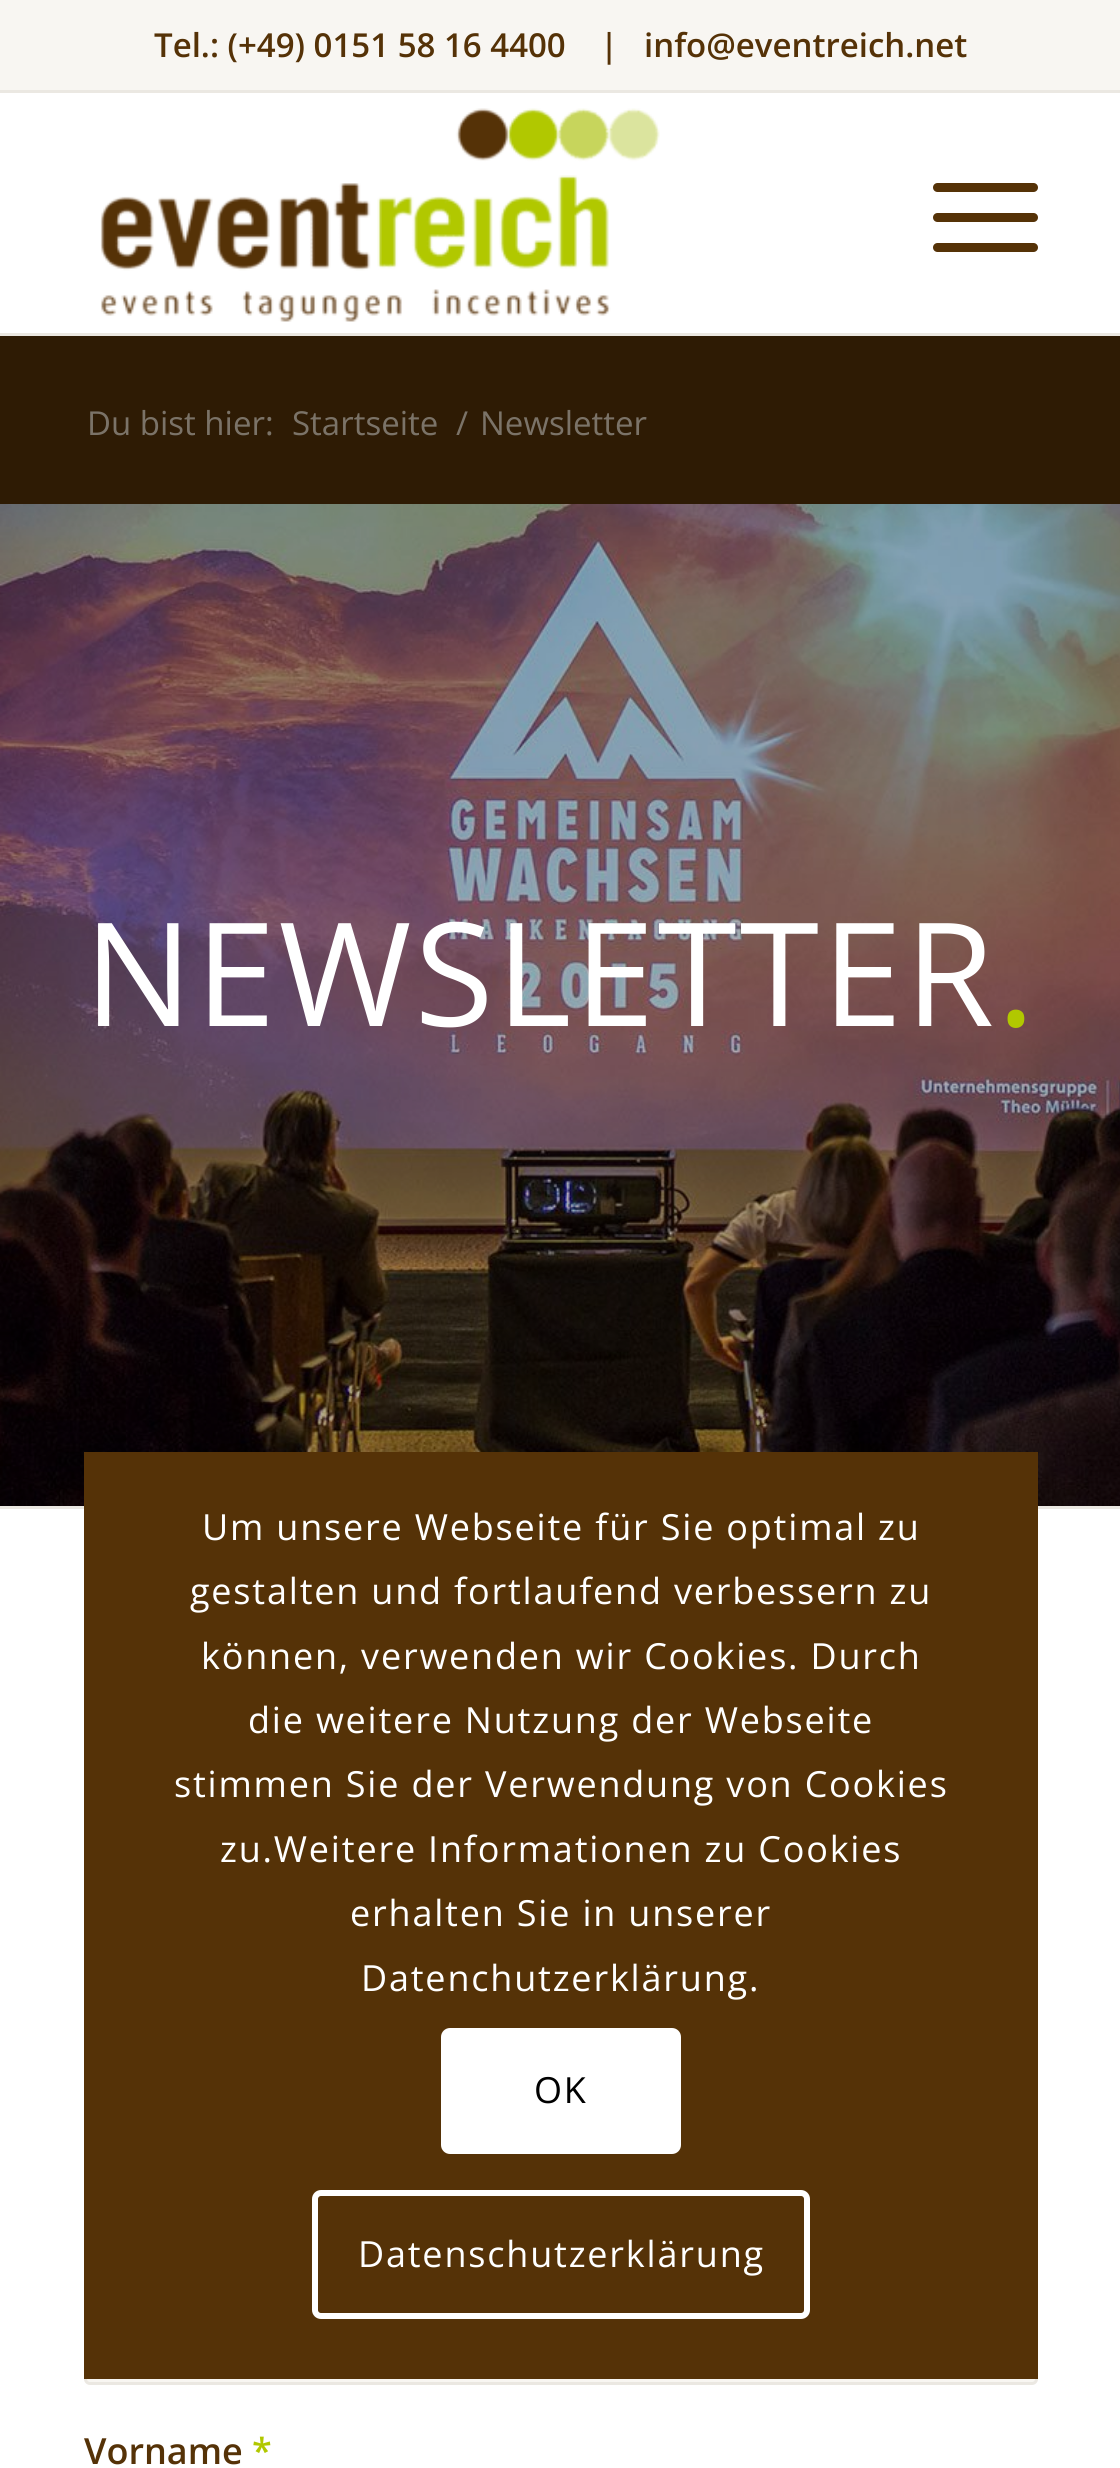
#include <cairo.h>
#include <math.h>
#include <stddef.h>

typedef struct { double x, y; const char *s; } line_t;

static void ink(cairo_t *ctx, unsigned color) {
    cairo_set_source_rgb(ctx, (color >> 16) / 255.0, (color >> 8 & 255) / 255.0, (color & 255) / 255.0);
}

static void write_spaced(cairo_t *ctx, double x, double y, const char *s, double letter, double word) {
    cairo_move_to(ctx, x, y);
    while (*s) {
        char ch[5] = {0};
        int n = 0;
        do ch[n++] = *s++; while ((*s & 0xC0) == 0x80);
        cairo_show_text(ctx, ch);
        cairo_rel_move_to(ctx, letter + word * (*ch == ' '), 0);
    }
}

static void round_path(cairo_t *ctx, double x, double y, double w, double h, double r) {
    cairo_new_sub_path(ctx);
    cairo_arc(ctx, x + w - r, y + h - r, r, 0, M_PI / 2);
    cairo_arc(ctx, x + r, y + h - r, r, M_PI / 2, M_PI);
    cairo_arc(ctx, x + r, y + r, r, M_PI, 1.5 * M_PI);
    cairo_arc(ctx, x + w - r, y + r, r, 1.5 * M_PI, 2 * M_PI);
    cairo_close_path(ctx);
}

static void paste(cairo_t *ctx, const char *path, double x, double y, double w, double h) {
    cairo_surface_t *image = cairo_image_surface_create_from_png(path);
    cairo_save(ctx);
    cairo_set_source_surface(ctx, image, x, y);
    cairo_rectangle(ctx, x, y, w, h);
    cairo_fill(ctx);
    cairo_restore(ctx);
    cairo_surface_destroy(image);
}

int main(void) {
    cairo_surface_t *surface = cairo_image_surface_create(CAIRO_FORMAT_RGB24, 1120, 2468);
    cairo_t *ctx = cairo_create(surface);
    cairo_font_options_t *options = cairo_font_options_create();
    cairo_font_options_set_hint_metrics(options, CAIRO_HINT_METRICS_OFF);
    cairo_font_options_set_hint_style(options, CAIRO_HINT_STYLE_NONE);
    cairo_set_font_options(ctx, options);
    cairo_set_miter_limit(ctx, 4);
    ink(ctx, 0xFFFFFF);
    cairo_paint(ctx);
    ink(ctx, 0xF8F6F2);
    cairo_rectangle(ctx, 0, 0, 1120, 90);
    cairo_fill(ctx);
    ink(ctx, 0xEBE8E2);
    cairo_rectangle(ctx, 0, 90, 1120, 3);
    cairo_fill(ctx);
    cairo_select_font_face(ctx, "Open Sans SemiBold", CAIRO_FONT_SLANT_NORMAL, CAIRO_FONT_WEIGHT_NORMAL);
    cairo_set_font_size(ctx, 33);
    ink(ctx, 0x553207);
    {
        static const line_t items[] = {
            {154, 57, "Tel.: (+49) 0151 58 16 4400"},
            {600, 57, "|"},
            {644, 57, "info@eventreich.net"},
        };
        for (size_t i = 0; i < sizeof items / sizeof *items; i++) {
            cairo_move_to(ctx, items[i].x, items[i].y);
            cairo_show_text(ctx, items[i].s);
        }
    }
    ink(ctx, 0xEBE8E2);
    cairo_rectangle(ctx, 0, 333, 1120, 3);
    cairo_fill(ctx);
    paste(ctx, "media/1.png", 100, 108, 560, 214);
    ink(ctx, 0x553207);
    round_path(ctx, 933, 213, 105, 9, 4.5);
    cairo_fill(ctx);
    round_path(ctx, 933, 183, 105, 9, 4.5);
    cairo_fill(ctx);
    round_path(ctx, 933, 243, 105, 9, 4.5);
    cairo_fill(ctx);
    ink(ctx, 0x2E1B04);
    cairo_rectangle(ctx, 0, 336, 1120, 168);
    cairo_fill(ctx);
    cairo_select_font_face(ctx, "Open Sans", CAIRO_FONT_SLANT_NORMAL, CAIRO_FONT_WEIGHT_NORMAL);
    ink(ctx, 0x7B7368);
    {
        static const line_t items[] = {
            {87, 435, "Du bist hier:"},
            {292, 435, "Startseite"},
            {456, 435, "/"},
            {480, 435, "Newsletter"},
        };
        for (size_t i = 0; i < sizeof items / sizeof *items; i++) {
            cairo_move_to(ctx, items[i].x, items[i].y);
            cairo_show_text(ctx, items[i].s);
        }
    }
    paste(ctx, "media/2.png", 0, 504, 1120, 1002);
    cairo_set_font_size(ctx, 144);
    ink(ctx, 0xFFFFFF);
    write_spaced(ctx, 84, 1026, "NEWSLETTER", 3, 0);
    ink(ctx, 0xB1C800);
    write_spaced(ctx, 997, 1026, ".", 3, 0);
    ink(ctx, 0xEBE8E2);
    cairo_rectangle(ctx, 0, 1506, 1120, 3);
    cairo_fill(ctx);
    ink(ctx, 0xF8F6F2);
    round_path(ctx, 85.5, 2248.5, 951, 135, 4.5);
    cairo_fill_preserve(ctx);
    ink(ctx, 0xEBE8E2);
    cairo_set_line_width(ctx, 3);
    cairo_stroke(ctx);
    cairo_select_font_face(ctx, "Open Sans SemiBold", CAIRO_FONT_SLANT_NORMAL, CAIRO_FONT_WEIGHT_NORMAL);
    cairo_set_font_size(ctx, 36);
    ink(ctx, 0x553207);
    cairo_move_to(ctx, 84, 2464);
    cairo_show_text(ctx, "Vorname");
    ink(ctx, 0xB1C800);
    cairo_move_to(ctx, 252, 2464);
    cairo_show_text(ctx, "*");
    ink(ctx, 0x553207);
    cairo_rectangle(ctx, 84, 1452, 954, 927);
    cairo_fill(ctx);
    cairo_select_font_face(ctx, "Open Sans", CAIRO_FONT_SLANT_NORMAL, CAIRO_FONT_WEIGHT_NORMAL);
    ink(ctx, 0xFFFFFF);
    {
        static const line_t items[] = {
            {202, 1540, "Um unsere Webseite für Sie optimal zu"},
            {190, 1604, "gestalten und fortlaufend verbessern zu"},
            {201, 1669, "können, verwenden wir Cookies. Durch"},
            {248, 1733, "die weitere Nutzung der Webseite"},
            {174, 1797, "stimmen Sie der Verwendung von Cookies"},
            {220, 1862, "zu.Weitere Informationen zu Cookies"},
            {350, 1926, "erhalten Sie in unserer"},
            {361, 1991, "Datenchutzerklärung."},
        };
        for (size_t i = 0; i < sizeof items / sizeof *items; i++) {
            write_spaced(ctx, items[i].x, items[i].y, items[i].s, 1.8, 0);
        }
    }
    round_path(ctx, 441, 2028, 240, 126, 9);
    cairo_fill(ctx);
    ink(ctx, 0x000000);
    write_spaced(ctx, 534, 2103, "OK", 1.8, 0);
    round_path(ctx, 315, 2193, 492, 123, 6);
    ink(ctx, 0xFFFFFF);
    cairo_set_line_width(ctx, 6);
    cairo_stroke(ctx);
    write_spaced(ctx, 358, 2267, "Datenschutzerklärung", 1.8, 0);
    cairo_surface_write_to_png(surface, "image.png");
    cairo_font_options_destroy(options);
    cairo_destroy(ctx);
    cairo_surface_destroy(surface);
    return 0;
}
